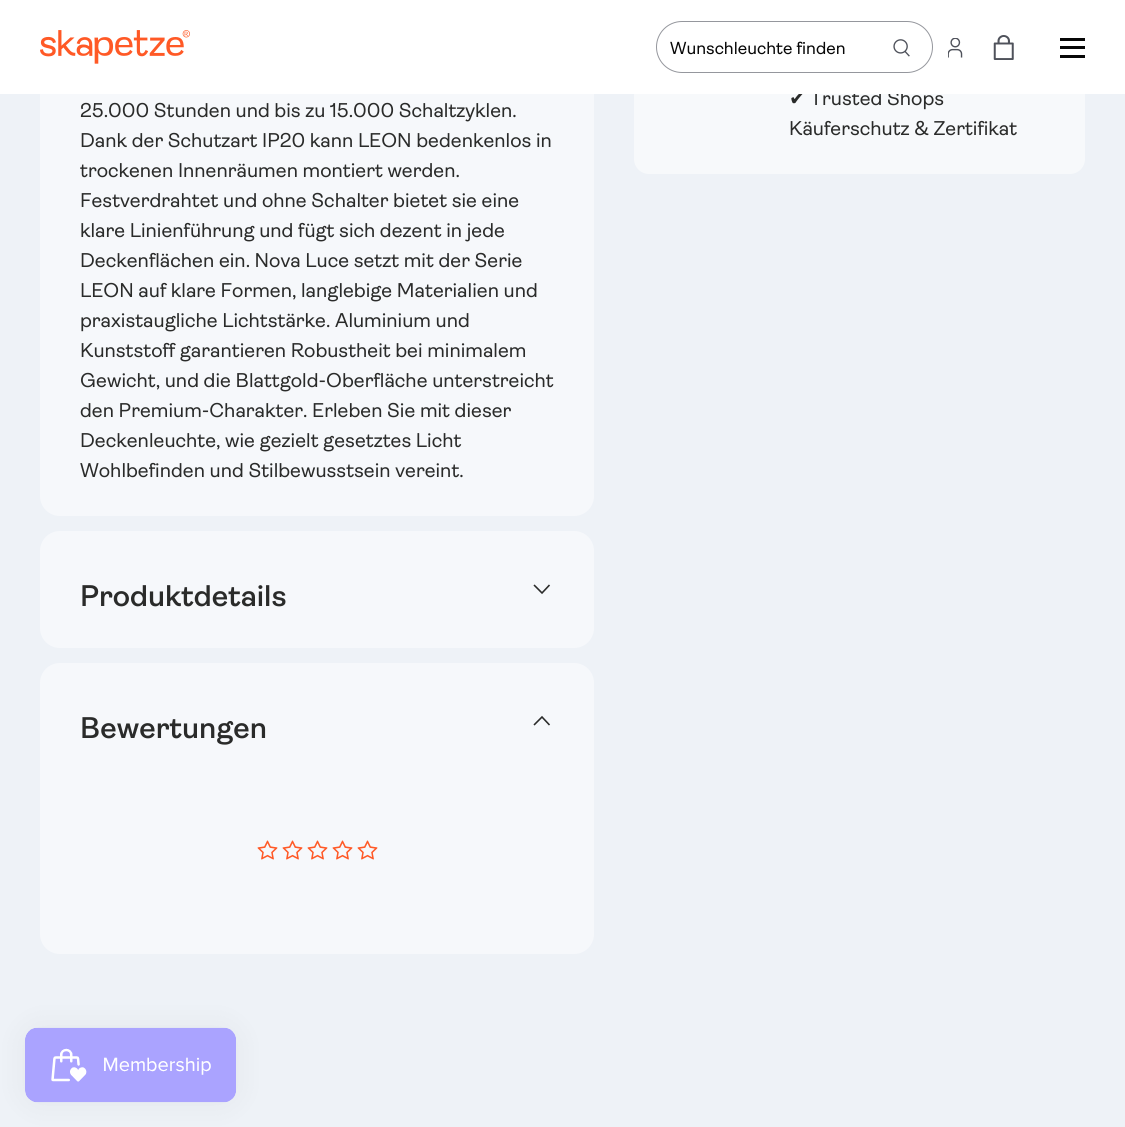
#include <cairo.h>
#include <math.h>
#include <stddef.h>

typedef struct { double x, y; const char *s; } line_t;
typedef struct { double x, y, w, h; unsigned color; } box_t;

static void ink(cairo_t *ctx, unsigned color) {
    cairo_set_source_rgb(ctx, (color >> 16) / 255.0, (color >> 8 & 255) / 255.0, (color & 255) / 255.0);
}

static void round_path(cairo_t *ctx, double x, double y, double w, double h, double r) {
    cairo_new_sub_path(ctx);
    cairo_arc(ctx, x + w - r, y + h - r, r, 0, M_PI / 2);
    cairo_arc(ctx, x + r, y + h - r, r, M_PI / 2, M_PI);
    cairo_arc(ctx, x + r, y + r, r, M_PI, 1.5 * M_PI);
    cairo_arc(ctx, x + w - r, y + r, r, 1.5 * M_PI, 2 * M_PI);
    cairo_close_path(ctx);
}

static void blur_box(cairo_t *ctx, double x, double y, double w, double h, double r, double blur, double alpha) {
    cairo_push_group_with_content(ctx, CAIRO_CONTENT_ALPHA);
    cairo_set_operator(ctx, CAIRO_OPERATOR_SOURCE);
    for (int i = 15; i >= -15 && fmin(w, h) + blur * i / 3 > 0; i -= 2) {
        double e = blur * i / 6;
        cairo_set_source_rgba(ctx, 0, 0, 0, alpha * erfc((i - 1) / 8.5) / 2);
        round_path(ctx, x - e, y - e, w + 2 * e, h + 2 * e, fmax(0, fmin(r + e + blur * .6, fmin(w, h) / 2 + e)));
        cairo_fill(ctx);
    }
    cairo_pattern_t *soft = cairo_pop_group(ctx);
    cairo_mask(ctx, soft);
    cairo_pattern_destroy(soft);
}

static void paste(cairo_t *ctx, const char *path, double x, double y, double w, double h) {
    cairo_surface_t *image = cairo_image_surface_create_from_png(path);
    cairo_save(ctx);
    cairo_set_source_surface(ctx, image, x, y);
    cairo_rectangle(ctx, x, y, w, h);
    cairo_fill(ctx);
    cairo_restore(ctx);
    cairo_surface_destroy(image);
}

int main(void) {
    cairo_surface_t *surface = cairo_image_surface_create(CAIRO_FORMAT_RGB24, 1125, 1127);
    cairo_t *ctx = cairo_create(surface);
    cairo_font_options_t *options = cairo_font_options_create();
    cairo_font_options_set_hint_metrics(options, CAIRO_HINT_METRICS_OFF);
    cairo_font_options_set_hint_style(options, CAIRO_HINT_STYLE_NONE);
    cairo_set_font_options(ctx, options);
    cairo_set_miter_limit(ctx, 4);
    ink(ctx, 0xEEF2F7);
    cairo_paint(ctx);
    ink(ctx, 0xF6F8FB);
    round_path(ctx, 40, -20, 554, 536, 20);
    cairo_fill(ctx);
    ink(ctx, 0xF7F9FB);
    round_path(ctx, 634, -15, 451, 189, 15);
    cairo_fill(ctx);
    cairo_select_font_face(ctx, "DejaVu Sans", CAIRO_FONT_SLANT_NORMAL, CAIRO_FONT_WEIGHT_NORMAL);
    cairo_set_font_size(ctx, 20);
    ink(ctx, 0x2A2B2A);
    cairo_move_to(ctx, 789, 105);
    cairo_show_text(ctx, "✔");
    cairo_select_font_face(ctx, "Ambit", CAIRO_FONT_SLANT_NORMAL, CAIRO_FONT_WEIGHT_NORMAL);
    cairo_move_to(ctx, 810, 105);
    cairo_show_text(ctx, "Trusted Shops");
    ink(ctx, 0xFFFFFF);
    cairo_rectangle(ctx, 0, 0, 1125, 94);
    cairo_fill(ctx);
    paste(ctx, "media/1.png", 40, 30, 150, 34);
    round_path(ctx, 656.5, 21.5, 276, 51, 25.5);
    ink(ctx, 0x95979D);
    cairo_set_line_width(ctx, 1);
    cairo_stroke(ctx);
    cairo_set_font_size(ctx, 17.5);
    ink(ctx, 0x070707);
    cairo_move_to(ctx, 670, 54);
    cairo_show_text(ctx, "Wunschleuchte finden");
    paste(ctx, "media/2.png", 893, 39, 17, 18);
    paste(ctx, "media/3.png", 948, 38, 15, 20);
    paste(ctx, "media/4.png", 993, 35, 21, 25);
    {
        static const box_t items[] = {
            {1060, 38, 25, 3, 0x070707},
            {1060, 55, 25, 3, 0x070707},
            {1060, 46, 25, 3, 0x070707},
        };
        for (size_t i = 0; i < sizeof items / sizeof *items; i++) {
            ink(ctx, items[i].color);
            cairo_rectangle(ctx, items[i].x, items[i].y, items[i].w, items[i].h);
            cairo_fill(ctx);
        }
    }
    cairo_set_font_size(ctx, 20);
    ink(ctx, 0x2A2B2A);
    {
        static const line_t items[] = {
            {80, 117, "25.000 Stunden und bis zu 15.000 Schaltzyklen."},
            {80, 147, "Dank der Schutzart IP20 kann LEON bedenkenlos in"},
            {80, 177, "trockenen Innenräumen montiert werden."},
            {80, 207, "Festverdrahtet und ohne Schalter bietet sie eine"},
            {80, 237, "klare Linienführung und fügt sich dezent in jede"},
            {80, 267, "Deckenflächen ein. Nova Luce setzt mit der Serie"},
            {80, 297, "LEON auf klare Formen, langlebige Materialien und"},
            {80, 327, "praxistaugliche Lichtstärke. Aluminium und"},
            {80, 357, "Kunststoff garantieren Robustheit bei minimalem"},
            {80, 387, "Gewicht, und die Blattgold-Oberfläche unterstreicht"},
            {80, 417, "den Premium-Charakter. Erleben Sie mit dieser"},
            {80, 447, "Deckenleuchte, wie gezielt gesetztes Licht"},
            {80, 477, "Wohlbefinden und Stilbewusstsein vereint."},
        };
        for (size_t i = 0; i < sizeof items / sizeof *items; i++) {
            cairo_move_to(ctx, items[i].x, items[i].y);
            cairo_show_text(ctx, items[i].s);
        }
    }
    ink(ctx, 0xF6F8FB);
    round_path(ctx, 40, 531, 554, 117, 20);
    cairo_fill(ctx);
    cairo_select_font_face(ctx, "Ambit SemiBold", CAIRO_FONT_SLANT_NORMAL, CAIRO_FONT_WEIGHT_NORMAL);
    cairo_set_font_size(ctx, 30);
    ink(ctx, 0x2A2B2A);
    cairo_move_to(ctx, 80, 606);
    cairo_show_text(ctx, "Produktdetails");
    cairo_new_path(ctx);
    cairo_move_to(ctx, 549.5, 585);
    cairo_line_to(ctx, 542, 593);
    cairo_line_to(ctx, 534, 585);
    cairo_set_line_width(ctx, 1.6);
    cairo_stroke(ctx);
    ink(ctx, 0xF6F8FB);
    round_path(ctx, 40, 663, 554, 291, 20);
    cairo_fill(ctx);
    ink(ctx, 0x2A2B2A);
    cairo_move_to(ctx, 80, 738);
    cairo_show_text(ctx, "Bewertungen");
    cairo_new_path(ctx);
    cairo_move_to(ctx, 549.5, 725);
    cairo_line_to(ctx, 542, 717);
    cairo_line_to(ctx, 534, 725);
    cairo_stroke(ctx);
    paste(ctx, "media/5.png", 257, 840, 21, 20);
    paste(ctx, "media/5.png", 282, 840, 21, 20);
    paste(ctx, "media/5.png", 307, 840, 21, 20);
    paste(ctx, "media/5.png", 332, 840, 21, 20);
    paste(ctx, "media/5.png", 357, 840, 21, 20);
    cairo_select_font_face(ctx, "Ambit", CAIRO_FONT_SLANT_NORMAL, CAIRO_FONT_WEIGHT_NORMAL);
    cairo_set_font_size(ctx, 20);
    cairo_move_to(ctx, 789, 135);
    cairo_show_text(ctx, "Käuferschutz & Zertifikat");
    ink(ctx, 0x000000);
    blur_box(ctx, 25, 1028, 211, 75, 13, 15.5, 0.05);
    paste(ctx, "media/6.png", 25, 1027, 211, 76);
    cairo_surface_write_to_png(surface, "image.png");
    cairo_font_options_destroy(options);
    cairo_destroy(ctx);
    cairo_surface_destroy(surface);
    return 0;
}
